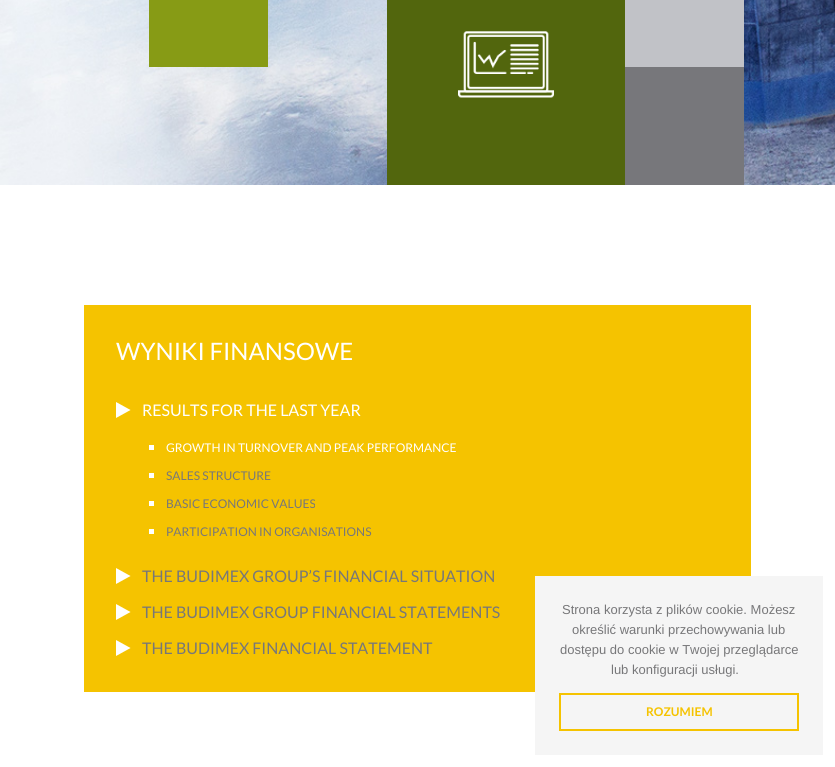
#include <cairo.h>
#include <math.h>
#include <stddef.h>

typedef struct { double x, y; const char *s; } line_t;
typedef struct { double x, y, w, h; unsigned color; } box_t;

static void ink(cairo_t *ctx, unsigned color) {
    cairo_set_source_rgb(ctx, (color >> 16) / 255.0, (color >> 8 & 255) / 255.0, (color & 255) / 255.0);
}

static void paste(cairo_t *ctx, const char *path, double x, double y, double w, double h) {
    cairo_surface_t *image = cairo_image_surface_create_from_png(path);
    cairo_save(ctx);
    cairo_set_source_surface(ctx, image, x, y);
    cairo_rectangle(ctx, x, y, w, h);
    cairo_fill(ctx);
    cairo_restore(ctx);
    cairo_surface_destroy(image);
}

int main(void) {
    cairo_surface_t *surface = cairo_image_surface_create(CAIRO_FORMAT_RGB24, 835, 767);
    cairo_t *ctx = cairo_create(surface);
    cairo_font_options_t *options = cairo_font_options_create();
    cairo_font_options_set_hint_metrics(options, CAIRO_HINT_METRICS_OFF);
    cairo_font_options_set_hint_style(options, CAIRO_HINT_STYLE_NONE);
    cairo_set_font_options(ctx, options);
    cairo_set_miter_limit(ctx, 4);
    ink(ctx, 0xFFFFFF);
    cairo_paint(ctx);
    paste(ctx, "media/1.png", 0, 0, 835, 185);
    ink(ctx, 0x879B15);
    cairo_rectangle(ctx, 149, 0, 119, 67);
    cairo_fill(ctx);
    ink(ctx, 0x52660D);
    cairo_rectangle(ctx, 387, 0, 238, 185);
    cairo_fill(ctx);
    paste(ctx, "media/2.png", 458, 31, 96, 67);
    {
        static const box_t items[] = {
            {625, 0, 119, 67, 0xC1C2C7},
            {625, 67, 119, 118, 0x77777B},
            {84, 305, 667, 387, 0xF5C300},
        };
        for (size_t i = 0; i < sizeof items / sizeof *items; i++) {
            ink(ctx, items[i].color);
            cairo_rectangle(ctx, items[i].x, items[i].y, items[i].w, items[i].h);
            cairo_fill(ctx);
        }
    }
    cairo_select_font_face(ctx, "Lato", CAIRO_FONT_SLANT_NORMAL, CAIRO_FONT_WEIGHT_NORMAL);
    cairo_set_font_size(ctx, 24);
    ink(ctx, 0xFFFFFF);
    cairo_move_to(ctx, 116, 360);
    cairo_show_text(ctx, "WYNIKI FINANSOWE");
    cairo_new_path(ctx);
    cairo_move_to(ctx, 116, 402);
    cairo_line_to(ctx, 116, 418);
    cairo_line_to(ctx, 130.5, 410);
    cairo_close_path(ctx);
    cairo_fill(ctx);
    cairo_set_font_size(ctx, 16);
    cairo_move_to(ctx, 142, 416);
    cairo_show_text(ctx, "RESULTS FOR THE LAST YEAR");
    cairo_rectangle(ctx, 149, 445, 5, 5);
    cairo_fill(ctx);
    cairo_set_font_size(ctx, 12);
    cairo_move_to(ctx, 166, 452);
    cairo_show_text(ctx, "GROWTH IN TURNOVER AND PEAK PERFORMANCE");
    cairo_rectangle(ctx, 149, 473, 5, 5);
    cairo_fill(ctx);
    ink(ctx, 0x777779);
    cairo_move_to(ctx, 166, 480);
    cairo_show_text(ctx, "SALES STRUCTURE");
    ink(ctx, 0xFFFFFF);
    cairo_rectangle(ctx, 149, 501, 5, 5);
    cairo_fill(ctx);
    ink(ctx, 0x777779);
    cairo_move_to(ctx, 166, 508);
    cairo_show_text(ctx, "BASIC ECONOMIC VALUES");
    ink(ctx, 0xFFFFFF);
    cairo_rectangle(ctx, 149, 529, 5, 5);
    cairo_fill(ctx);
    ink(ctx, 0x777779);
    cairo_move_to(ctx, 166, 536);
    cairo_show_text(ctx, "PARTICIPATION IN ORGANISATIONS");
    ink(ctx, 0xFFFFFF);
    cairo_new_path(ctx);
    cairo_move_to(ctx, 116, 568);
    cairo_line_to(ctx, 116, 584);
    cairo_line_to(ctx, 130.5, 576);
    cairo_close_path(ctx);
    cairo_fill(ctx);
    cairo_set_font_size(ctx, 16);
    ink(ctx, 0x777779);
    cairo_move_to(ctx, 142, 582);
    cairo_show_text(ctx, "THE BUDIMEX GROUP’S FINANCIAL SITUATION");
    ink(ctx, 0xFFFFFF);
    cairo_new_path(ctx);
    cairo_move_to(ctx, 116, 604);
    cairo_line_to(ctx, 116, 620);
    cairo_line_to(ctx, 130.5, 612);
    cairo_close_path(ctx);
    cairo_fill(ctx);
    ink(ctx, 0x777779);
    cairo_move_to(ctx, 142, 618);
    cairo_show_text(ctx, "THE BUDIMEX GROUP FINANCIAL STATEMENTS");
    ink(ctx, 0xFFFFFF);
    cairo_new_path(ctx);
    cairo_move_to(ctx, 116, 640);
    cairo_line_to(ctx, 116, 656);
    cairo_line_to(ctx, 130.5, 648);
    cairo_close_path(ctx);
    cairo_fill(ctx);
    ink(ctx, 0x777779);
    cairo_move_to(ctx, 142, 654);
    cairo_show_text(ctx, "THE BUDIMEX FINANCIAL STATEMENT");
    ink(ctx, 0xF5F5F5);
    cairo_rectangle(ctx, 535, 576, 288, 179);
    cairo_fill(ctx);
    cairo_select_font_face(ctx, "Liberation Sans", CAIRO_FONT_SLANT_NORMAL, CAIRO_FONT_WEIGHT_NORMAL);
    cairo_set_font_size(ctx, 13);
    ink(ctx, 0x777779);
    {
        static const line_t items[] = {
            {562, 614, "Strona korzysta z plików cookie. Możesz"},
            {572, 634, "określić warunki przechowywania lub"},
            {560, 654, "dostępu do cookie w Twojej przeglądarce"},
            {611, 674, "lub konfiguracji usługi."},
        };
        for (size_t i = 0; i < sizeof items / sizeof *items; i++) {
            cairo_move_to(ctx, items[i].x, items[i].y);
            cairo_show_text(ctx, items[i].s);
        }
    }
    cairo_rectangle(ctx, 560, 694, 238, 36);
    ink(ctx, 0xF5C300);
    cairo_stroke(ctx);
    cairo_select_font_face(ctx, "Lato", CAIRO_FONT_SLANT_NORMAL, CAIRO_FONT_WEIGHT_BOLD);
    cairo_set_font_size(ctx, 12);
    cairo_move_to(ctx, 646, 716);
    cairo_show_text(ctx, "ROZUMIEM");
    cairo_surface_write_to_png(surface, "image.png");
    cairo_font_options_destroy(options);
    cairo_destroy(ctx);
    cairo_surface_destroy(surface);
    return 0;
}
